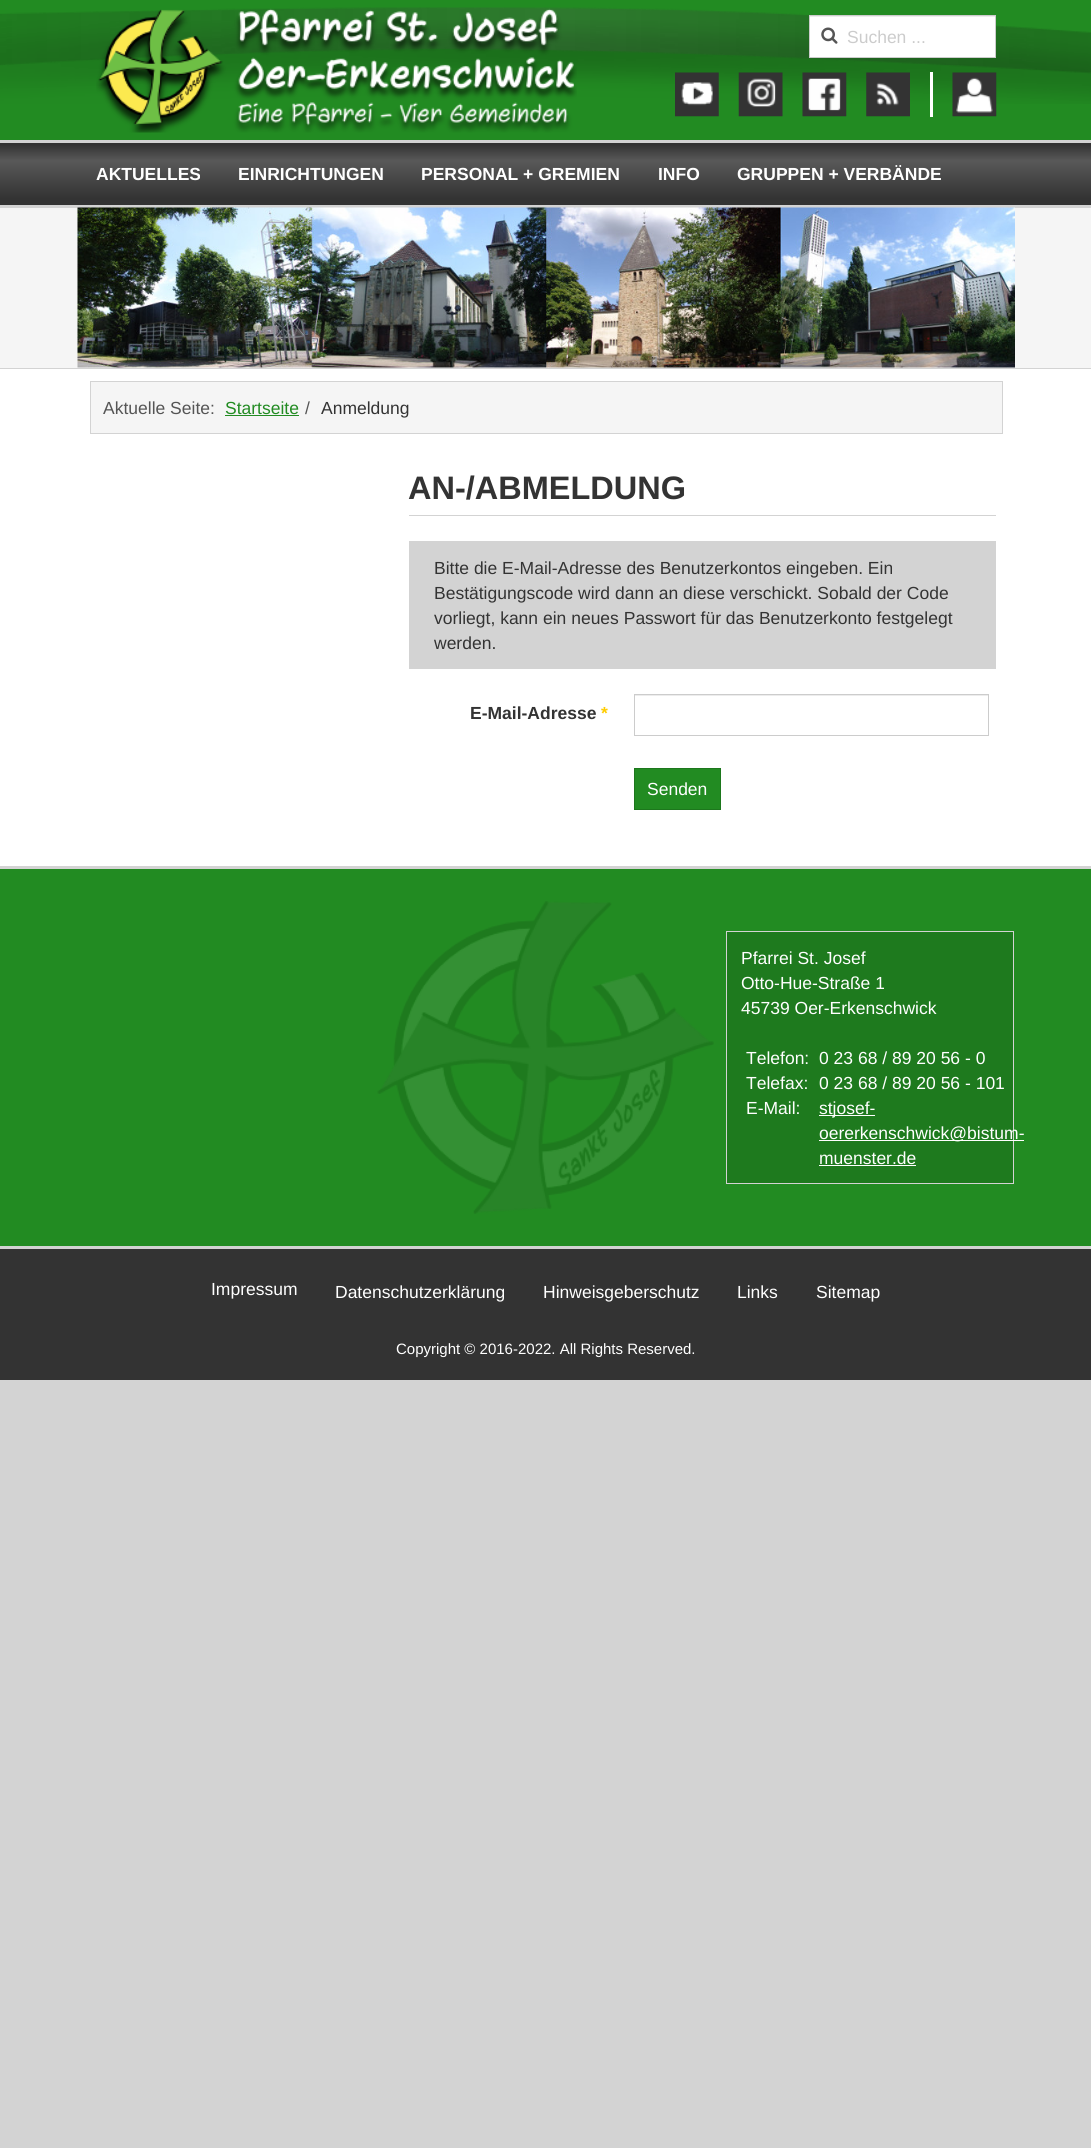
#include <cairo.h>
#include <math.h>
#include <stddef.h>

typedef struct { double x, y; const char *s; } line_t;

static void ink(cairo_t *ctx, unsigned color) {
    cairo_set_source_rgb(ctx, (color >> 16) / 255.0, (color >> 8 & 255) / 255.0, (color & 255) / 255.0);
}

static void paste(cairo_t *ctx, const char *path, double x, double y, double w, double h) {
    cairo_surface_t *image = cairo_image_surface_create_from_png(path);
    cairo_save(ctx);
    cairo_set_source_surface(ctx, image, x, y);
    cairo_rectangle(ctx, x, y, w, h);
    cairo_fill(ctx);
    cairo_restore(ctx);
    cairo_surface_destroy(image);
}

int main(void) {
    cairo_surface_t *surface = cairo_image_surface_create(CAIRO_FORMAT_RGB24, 1091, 2148);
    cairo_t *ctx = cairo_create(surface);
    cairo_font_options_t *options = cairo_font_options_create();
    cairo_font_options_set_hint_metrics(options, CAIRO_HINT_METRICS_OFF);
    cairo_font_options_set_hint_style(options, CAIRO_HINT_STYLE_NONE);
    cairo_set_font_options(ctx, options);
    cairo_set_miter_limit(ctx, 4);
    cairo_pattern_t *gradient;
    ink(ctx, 0xD3D3D3);
    cairo_paint(ctx);
    ink(ctx, 0xFFFFFF);
    cairo_rectangle(ctx, 0, 369, 1091, 497);
    cairo_fill(ctx);
    ink(ctx, 0x228B22);
    cairo_rectangle(ctx, 0, 0, 1091, 140);
    cairo_fill(ctx);
    paste(ctx, "media/1.png", 0, 7, 1091, 97);
    paste(ctx, "media/2.png", 96, 8, 481, 125);
    ink(ctx, 0xFFFFFF);
    cairo_rectangle(ctx, 810, 17, 185, 40);
    cairo_fill(ctx);
    ink(ctx, 0xECECEC);
    cairo_rectangle(ctx, 810, 16, 185, 1);
    cairo_fill(ctx);
    cairo_rectangle(ctx, 809.5, 15.5, 186, 42);
    ink(ctx, 0xCCCCCC);
    cairo_set_line_width(ctx, 1);
    cairo_stroke(ctx);
    paste(ctx, "media/3.png", 821, 27, 17, 17);
    cairo_select_font_face(ctx, "Liberation Sans", CAIRO_FONT_SLANT_NORMAL, CAIRO_FONT_WEIGHT_NORMAL);
    cairo_set_font_size(ctx, 17.5);
    cairo_move_to(ctx, 847, 43);
    cairo_show_text(ctx, "Suchen ...");
    paste(ctx, "media/4.png", 675, 72, 44, 45);
    paste(ctx, "media/5.png", 738, 72, 45, 45);
    paste(ctx, "media/6.png", 802, 72, 45, 45);
    paste(ctx, "media/7.png", 866, 72, 44, 45);
    ink(ctx, 0xFFFFFF);
    cairo_rectangle(ctx, 930, 72, 3, 45);
    cairo_fill(ctx);
    paste(ctx, "media/8.png", 952, 72, 45, 45);
    gradient = cairo_pattern_create_linear(546, 142, 546, 205);
    cairo_pattern_add_color_stop_rgba(gradient, 0.04, 0.2, 0.2, 0.2, 1);
    cairo_pattern_add_color_stop_rgba(gradient, 0.3, 0.349, 0.349, 0.349, 1);
    cairo_pattern_add_color_stop_rgba(gradient, 0.9, 0.2, 0.2, 0.2, 1);
    cairo_set_source(ctx, gradient);
    cairo_pattern_destroy(gradient);
    cairo_rectangle(ctx, 0, 143, 1091, 62);
    cairo_fill(ctx);
    cairo_select_font_face(ctx, "Liberation Sans", CAIRO_FONT_SLANT_NORMAL, CAIRO_FONT_WEIGHT_BOLD);
    ink(ctx, 0xFFFFFF);
    {
        static const line_t items[] = {
            {96, 180, "AKTUELLES"},
            {238, 180, "EINRICHTUNGEN"},
            {421, 180, "PERSONAL + GREMIEN"},
            {658, 180, "INFO"},
            {737, 180, "GRUPPEN + VERBÄNDE"},
        };
        for (size_t i = 0; i < sizeof items / sizeof *items; i++) {
            cairo_move_to(ctx, items[i].x, items[i].y);
            cairo_show_text(ctx, items[i].s);
        }
    }
    ink(ctx, 0xF5F5F5);
    cairo_rectangle(ctx, 0, 208, 1091, 160);
    cairo_fill(ctx);
    paste(ctx, "media/9.png", 77, 207, 938, 161);
    cairo_rectangle(ctx, 90.5, 381.5, 912, 52);
    cairo_fill_preserve(ctx);
    ink(ctx, 0xD3D3D3);
    cairo_stroke(ctx);
    cairo_select_font_face(ctx, "Liberation Sans", CAIRO_FONT_SLANT_NORMAL, CAIRO_FONT_WEIGHT_NORMAL);
    ink(ctx, 0x555555);
    cairo_move_to(ctx, 103, 414);
    cairo_show_text(ctx, "Aktuelle Seite:");
    ink(ctx, 0x228B22);
    cairo_move_to(ctx, 225, 414);
    cairo_show_text(ctx, "Startseite");
    cairo_rectangle(ctx, 225, 415, 74, 1);
    cairo_fill(ctx);
    ink(ctx, 0x555555);
    cairo_move_to(ctx, 305, 414);
    cairo_show_text(ctx, "/");
    ink(ctx, 0x333333);
    cairo_move_to(ctx, 321, 414);
    cairo_show_text(ctx, "Anmeldung");
    ink(ctx, 0xD3D3D3);
    cairo_rectangle(ctx, 409, 515, 587, 1);
    cairo_fill(ctx);
    cairo_select_font_face(ctx, "Liberation Sans", CAIRO_FONT_SLANT_NORMAL, CAIRO_FONT_WEIGHT_BOLD);
    cairo_set_font_size(ctx, 32.5);
    ink(ctx, 0x333333);
    cairo_move_to(ctx, 408, 499);
    cairo_show_text(ctx, "AN-/ABMELDUNG");
    ink(ctx, 0xD3D3D3);
    cairo_rectangle(ctx, 409, 541, 587, 128);
    cairo_fill(ctx);
    cairo_select_font_face(ctx, "Liberation Sans", CAIRO_FONT_SLANT_NORMAL, CAIRO_FONT_WEIGHT_NORMAL);
    cairo_set_font_size(ctx, 17.5);
    ink(ctx, 0x333333);
    {
        static const line_t items[] = {
            {434, 574, "Bitte die E-Mail-Adresse des Benutzerkontos eingeben. Ein"},
            {434, 599, "Bestätigungscode wird dann an diese verschickt. Sobald der Code"},
            {434, 624, "vorliegt, kann ein neues Passwort für das Benutzerkonto festgelegt"},
            {434, 649, "werden."},
        };
        for (size_t i = 0; i < sizeof items / sizeof *items; i++) {
            cairo_move_to(ctx, items[i].x, items[i].y);
            cairo_show_text(ctx, items[i].s);
        }
    }
    cairo_select_font_face(ctx, "Liberation Sans", CAIRO_FONT_SLANT_NORMAL, CAIRO_FONT_WEIGHT_BOLD);
    cairo_move_to(ctx, 470, 719);
    cairo_show_text(ctx, "E-Mail-Adresse");
    ink(ctx, 0xFFCC00);
    cairo_move_to(ctx, 601, 719);
    cairo_show_text(ctx, "*");
    ink(ctx, 0xECECEC);
    cairo_rectangle(ctx, 635, 695, 353, 1);
    cairo_fill(ctx);
    cairo_rectangle(ctx, 634.5, 694.5, 354, 41);
    ink(ctx, 0xCCCCCC);
    cairo_stroke(ctx);
    ink(ctx, 0x228B22);
    cairo_rectangle(ctx, 634.5, 768.5, 86, 41);
    cairo_fill_preserve(ctx);
    ink(ctx, 0x1D771D);
    cairo_stroke(ctx);
    cairo_select_font_face(ctx, "Liberation Sans", CAIRO_FONT_SLANT_NORMAL, CAIRO_FONT_WEIGHT_NORMAL);
    ink(ctx, 0xFFFFFF);
    cairo_move_to(ctx, 647, 795);
    cairo_show_text(ctx, "Senden");
    ink(ctx, 0x228B22);
    cairo_rectangle(ctx, 0, 869, 1091, 377);
    cairo_fill(ctx);
    paste(ctx, "media/10.png", 377, 901, 337, 313);
    ink(ctx, 0x1E7A1E);
    cairo_rectangle(ctx, 726.5, 931.5, 287, 252);
    cairo_fill_preserve(ctx);
    ink(ctx, 0xD3D3D3);
    cairo_stroke(ctx);
    ink(ctx, 0xFFFFFF);
    {
        static const line_t items[] = {
            {741, 964, "Pfarrei St. Josef"},
            {741, 989, "Otto-Hue-Straße 1"},
            {741, 1014, "45739 Oer-Erkenschwick"},
            {746, 1064, "Telefon:"},
            {819, 1064, "0 23 68 / 89 20 56 - 0"},
            {746, 1089, "Telefax:"},
            {819, 1089, "0 23 68 / 89 20 56 - 101"},
            {746, 1114, "E-Mail:"},
        };
        for (size_t i = 0; i < sizeof items / sizeof *items; i++) {
            cairo_move_to(ctx, items[i].x, items[i].y);
            cairo_show_text(ctx, items[i].s);
        }
    }
    cairo_rectangle(ctx, 819, 1115, 56, 1);
    cairo_fill(ctx);
    cairo_move_to(ctx, 819, 1114);
    cairo_show_text(ctx, "stjosef-");
    cairo_rectangle(ctx, 819, 1140, 205, 1);
    cairo_fill(ctx);
    cairo_move_to(ctx, 819, 1139);
    cairo_show_text(ctx, "oererkenschwick@bistum-");
    cairo_move_to(ctx, 819, 1164);
    cairo_show_text(ctx, "muenster.de");
    cairo_rectangle(ctx, 819, 1165, 97, 1);
    cairo_fill(ctx);
    ink(ctx, 0x333333);
    cairo_rectangle(ctx, 0, 1249, 1091, 131);
    cairo_fill(ctx);
    ink(ctx, 0xFFFFFF);
    {
        static const line_t items[] = {
            {211, 1295, "Impressum"},
            {335, 1298, "Datenschutzerklärung"},
            {543, 1298, "Hinweisgeberschutz"},
            {737, 1298, "Links"},
            {816, 1298, "Sitemap"},
        };
        for (size_t i = 0; i < sizeof items / sizeof *items; i++) {
            cairo_move_to(ctx, items[i].x, items[i].y);
            cairo_show_text(ctx, items[i].s);
        }
    }
    cairo_set_font_size(ctx, 15);
    cairo_move_to(ctx, 396, 1354);
    cairo_show_text(ctx, "Copyright © 2016-2022. All Rights Reserved.");
    cairo_surface_write_to_png(surface, "image.png");
    cairo_font_options_destroy(options);
    cairo_destroy(ctx);
    cairo_surface_destroy(surface);
    return 0;
}
